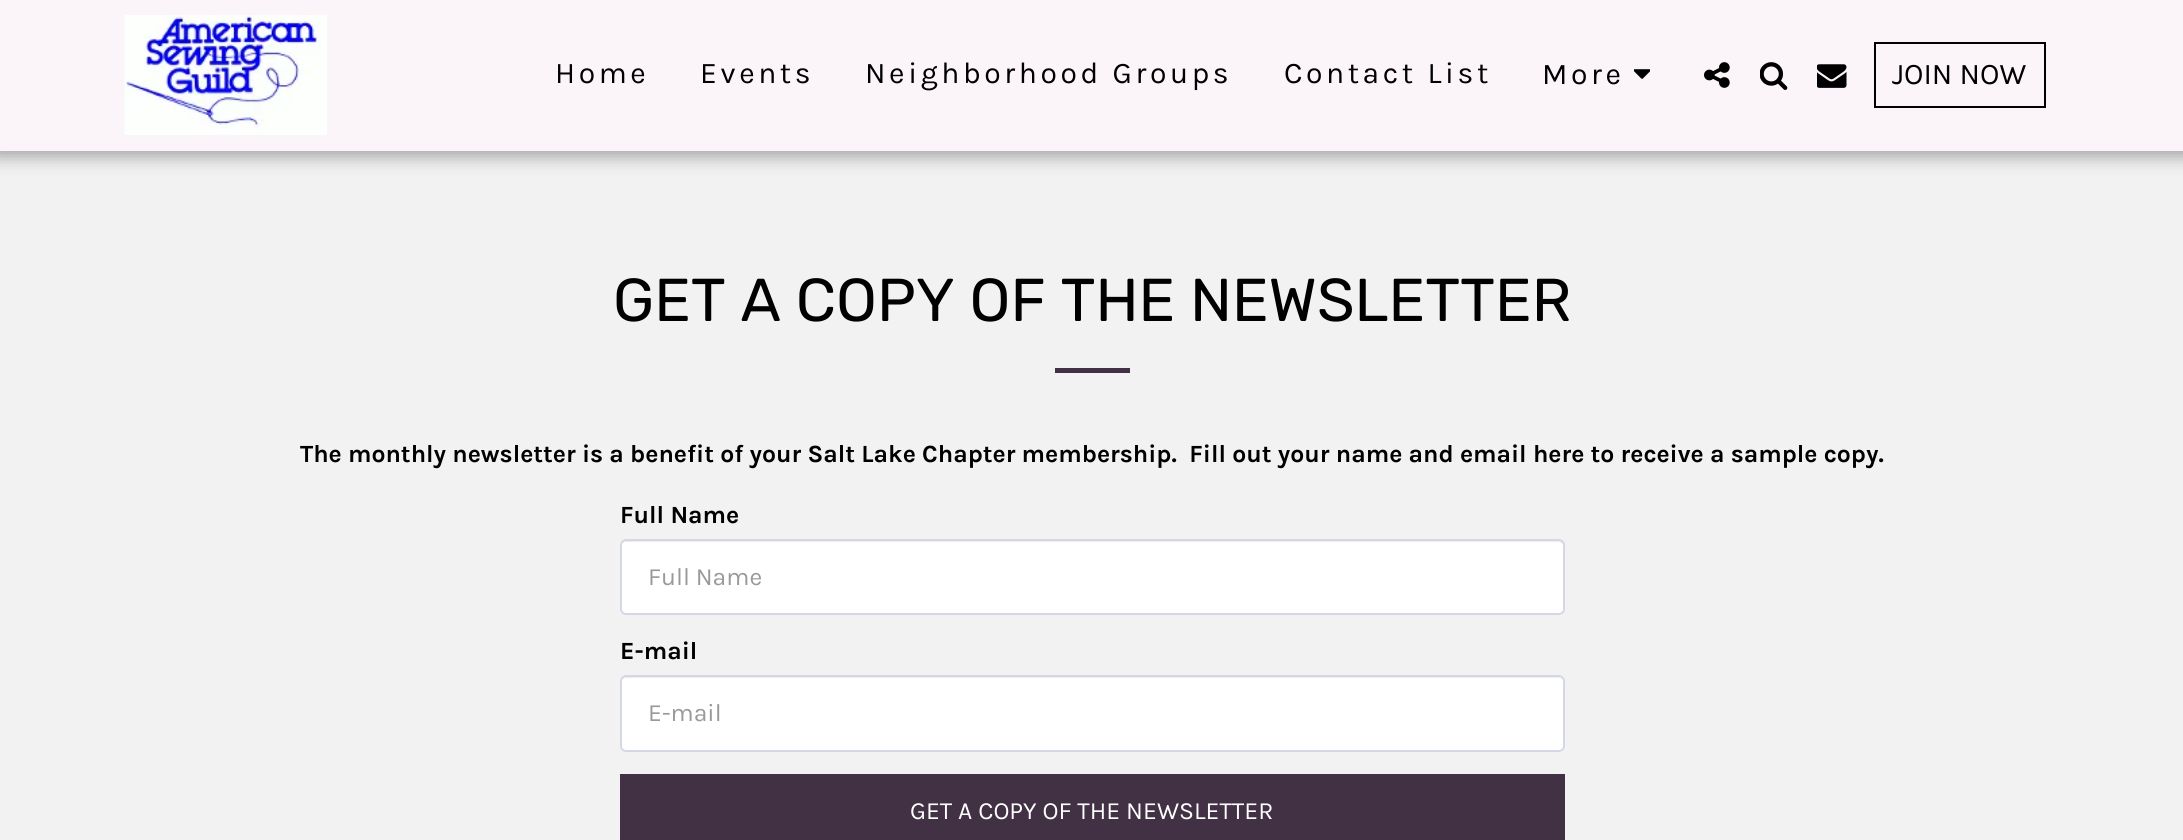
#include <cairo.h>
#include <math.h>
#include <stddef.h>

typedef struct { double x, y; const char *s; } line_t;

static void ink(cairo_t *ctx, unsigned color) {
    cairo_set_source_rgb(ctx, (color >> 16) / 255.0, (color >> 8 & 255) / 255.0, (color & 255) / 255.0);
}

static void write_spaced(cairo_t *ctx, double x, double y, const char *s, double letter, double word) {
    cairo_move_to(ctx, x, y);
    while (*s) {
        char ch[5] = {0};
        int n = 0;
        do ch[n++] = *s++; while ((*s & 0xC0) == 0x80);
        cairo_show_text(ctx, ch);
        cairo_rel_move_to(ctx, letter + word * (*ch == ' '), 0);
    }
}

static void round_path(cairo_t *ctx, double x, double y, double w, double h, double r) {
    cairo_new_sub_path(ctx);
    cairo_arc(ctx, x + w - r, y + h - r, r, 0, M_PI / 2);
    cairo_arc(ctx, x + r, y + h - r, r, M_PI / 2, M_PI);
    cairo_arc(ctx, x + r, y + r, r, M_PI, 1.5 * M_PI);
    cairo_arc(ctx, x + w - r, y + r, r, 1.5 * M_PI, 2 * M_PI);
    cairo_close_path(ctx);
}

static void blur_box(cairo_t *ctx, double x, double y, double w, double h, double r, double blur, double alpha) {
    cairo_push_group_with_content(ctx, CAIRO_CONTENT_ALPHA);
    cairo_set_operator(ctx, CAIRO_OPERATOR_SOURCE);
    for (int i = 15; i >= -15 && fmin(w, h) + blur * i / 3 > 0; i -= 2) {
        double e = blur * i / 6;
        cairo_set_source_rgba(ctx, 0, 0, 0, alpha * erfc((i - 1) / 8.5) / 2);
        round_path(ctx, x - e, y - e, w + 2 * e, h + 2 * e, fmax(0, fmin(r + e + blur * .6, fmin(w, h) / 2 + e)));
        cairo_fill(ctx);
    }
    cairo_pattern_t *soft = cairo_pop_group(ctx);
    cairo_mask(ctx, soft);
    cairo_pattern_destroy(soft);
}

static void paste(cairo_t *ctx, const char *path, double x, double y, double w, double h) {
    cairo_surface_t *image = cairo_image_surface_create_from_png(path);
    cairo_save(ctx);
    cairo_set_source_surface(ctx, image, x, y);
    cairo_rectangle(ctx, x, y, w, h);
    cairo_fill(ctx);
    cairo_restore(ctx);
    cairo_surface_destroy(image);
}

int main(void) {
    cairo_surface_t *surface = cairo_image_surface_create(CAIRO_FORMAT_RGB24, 2183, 840);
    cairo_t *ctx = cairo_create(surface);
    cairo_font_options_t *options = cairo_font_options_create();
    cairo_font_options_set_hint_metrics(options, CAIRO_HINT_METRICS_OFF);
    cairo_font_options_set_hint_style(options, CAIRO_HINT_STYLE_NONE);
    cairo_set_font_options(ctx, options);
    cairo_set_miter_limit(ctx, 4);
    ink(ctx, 0xF2F2F2);
    cairo_paint(ctx);
    ink(ctx, 0x000000);
    blur_box(ctx, -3, 0, 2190, 156, 0, 9, 0.35);
    ink(ctx, 0xFBF4F9);
    cairo_rectangle(ctx, 0, 0, 2183, 151);
    cairo_fill(ctx);
    paste(ctx, "media/1.png", 124, 15, 203, 120);
    cairo_select_font_face(ctx, "Karla", CAIRO_FONT_SLANT_NORMAL, CAIRO_FONT_WEIGHT_NORMAL);
    cairo_set_font_size(ctx, 30);
    ink(ctx, 0x000000);
    {
        static const line_t items[] = {
            {555, 83, "Home"},
            {700, 83, "Events"},
            {865, 83, "Neighborhood Groups"},
            {1284, 83, "Contact List"},
            {1542, 84, "More"},
        };
        for (size_t i = 0; i < sizeof items / sizeof *items; i++) {
            write_spaced(ctx, items[i].x, items[i].y, items[i].s, 3.6, 0);
        }
    }
    paste(ctx, "media/2.png", 1634, 69, 16, 10);
    paste(ctx, "media/3.png", 1704, 62, 26, 26);
    paste(ctx, "media/4.png", 1760, 62, 28, 28);
    paste(ctx, "media/5.png", 1817, 64, 30, 24);
    cairo_rectangle(ctx, 1875, 43, 170, 64);
    cairo_stroke(ctx);
    cairo_move_to(ctx, 1892, 84);
    cairo_show_text(ctx, "JOIN NOW");
    cairo_select_font_face(ctx, "Rubik", CAIRO_FONT_SLANT_NORMAL, CAIRO_FONT_WEIGHT_NORMAL);
    cairo_set_font_size(ctx, 60.4);
    cairo_move_to(ctx, 613, 321);
    cairo_show_text(ctx, "GET A COPY OF THE NEWSLETTER");
    ink(ctx, 0x423144);
    cairo_rectangle(ctx, 1055, 368, 75, 5);
    cairo_fill(ctx);
    cairo_select_font_face(ctx, "Karla", CAIRO_FONT_SLANT_NORMAL, CAIRO_FONT_WEIGHT_BOLD);
    cairo_set_font_size(ctx, 24.75);
    ink(ctx, 0x000000);
    cairo_move_to(ctx, 300, 462);
    cairo_show_text(ctx, "The monthly newsletter is a benefit of your Salt Lake Chapter membership.  Fill out your name and email here to receive a sample copy.");
    cairo_move_to(ctx, 620, 523);
    cairo_show_text(ctx, "Full Name");
    ink(ctx, 0xFFFFFF);
    round_path(ctx, 620, 539, 945, 76, 6);
    cairo_fill(ctx);
    ink(ctx, 0xECECEC);
    cairo_new_path(ctx);
    cairo_move_to(ctx, 626, 542);
    cairo_line_to(ctx, 1558, 542);
    cairo_curve_to(ctx, 1561, 542, 1563, 544, 1563, 546);
    cairo_curve_to(ctx, 1563, 543, 1561, 540, 1558, 540);
    cairo_line_to(ctx, 626, 540);
    cairo_curve_to(ctx, 623, 540, 621, 543, 621, 546);
    cairo_curve_to(ctx, 621, 544, 623, 542, 626, 542);
    cairo_close_path(ctx);
    cairo_fill(ctx);
    round_path(ctx, 621, 540, 943, 74, 5);
    ink(ctx, 0xD4D7E5);
    cairo_stroke(ctx);
    cairo_select_font_face(ctx, "Karla", CAIRO_FONT_SLANT_NORMAL, CAIRO_FONT_WEIGHT_NORMAL);
    ink(ctx, 0x999999);
    cairo_move_to(ctx, 648, 585);
    cairo_show_text(ctx, "Full Name");
    cairo_select_font_face(ctx, "Karla", CAIRO_FONT_SLANT_NORMAL, CAIRO_FONT_WEIGHT_BOLD);
    ink(ctx, 0x000000);
    cairo_move_to(ctx, 620, 659);
    cairo_show_text(ctx, "E-mail");
    ink(ctx, 0xFFFFFF);
    round_path(ctx, 620, 675, 945, 77, 6);
    cairo_fill(ctx);
    ink(ctx, 0xECECEC);
    cairo_new_path(ctx);
    cairo_move_to(ctx, 626, 678);
    cairo_line_to(ctx, 1558, 678);
    cairo_curve_to(ctx, 1561, 678, 1563, 680, 1563, 682);
    cairo_curve_to(ctx, 1563, 679, 1561, 677, 1558, 677);
    cairo_line_to(ctx, 626, 677);
    cairo_curve_to(ctx, 623, 677, 621, 679, 621, 682);
    cairo_curve_to(ctx, 621, 680, 623, 678, 626, 678);
    cairo_close_path(ctx);
    cairo_fill(ctx);
    round_path(ctx, 621, 676, 943, 75, 5);
    ink(ctx, 0xD4D7E5);
    cairo_stroke(ctx);
    cairo_select_font_face(ctx, "Karla", CAIRO_FONT_SLANT_NORMAL, CAIRO_FONT_WEIGHT_NORMAL);
    ink(ctx, 0x999999);
    cairo_move_to(ctx, 648, 721);
    cairo_show_text(ctx, "E-mail");
    ink(ctx, 0x423144);
    cairo_rectangle(ctx, 620, 774, 945, 66);
    cairo_fill(ctx);
    ink(ctx, 0xFFFFFF);
    cairo_move_to(ctx, 910, 819);
    cairo_show_text(ctx, "GET A COPY OF THE NEWSLETTER");
    cairo_surface_write_to_png(surface, "image.png");
    cairo_font_options_destroy(options);
    cairo_destroy(ctx);
    cairo_surface_destroy(surface);
    return 0;
}
